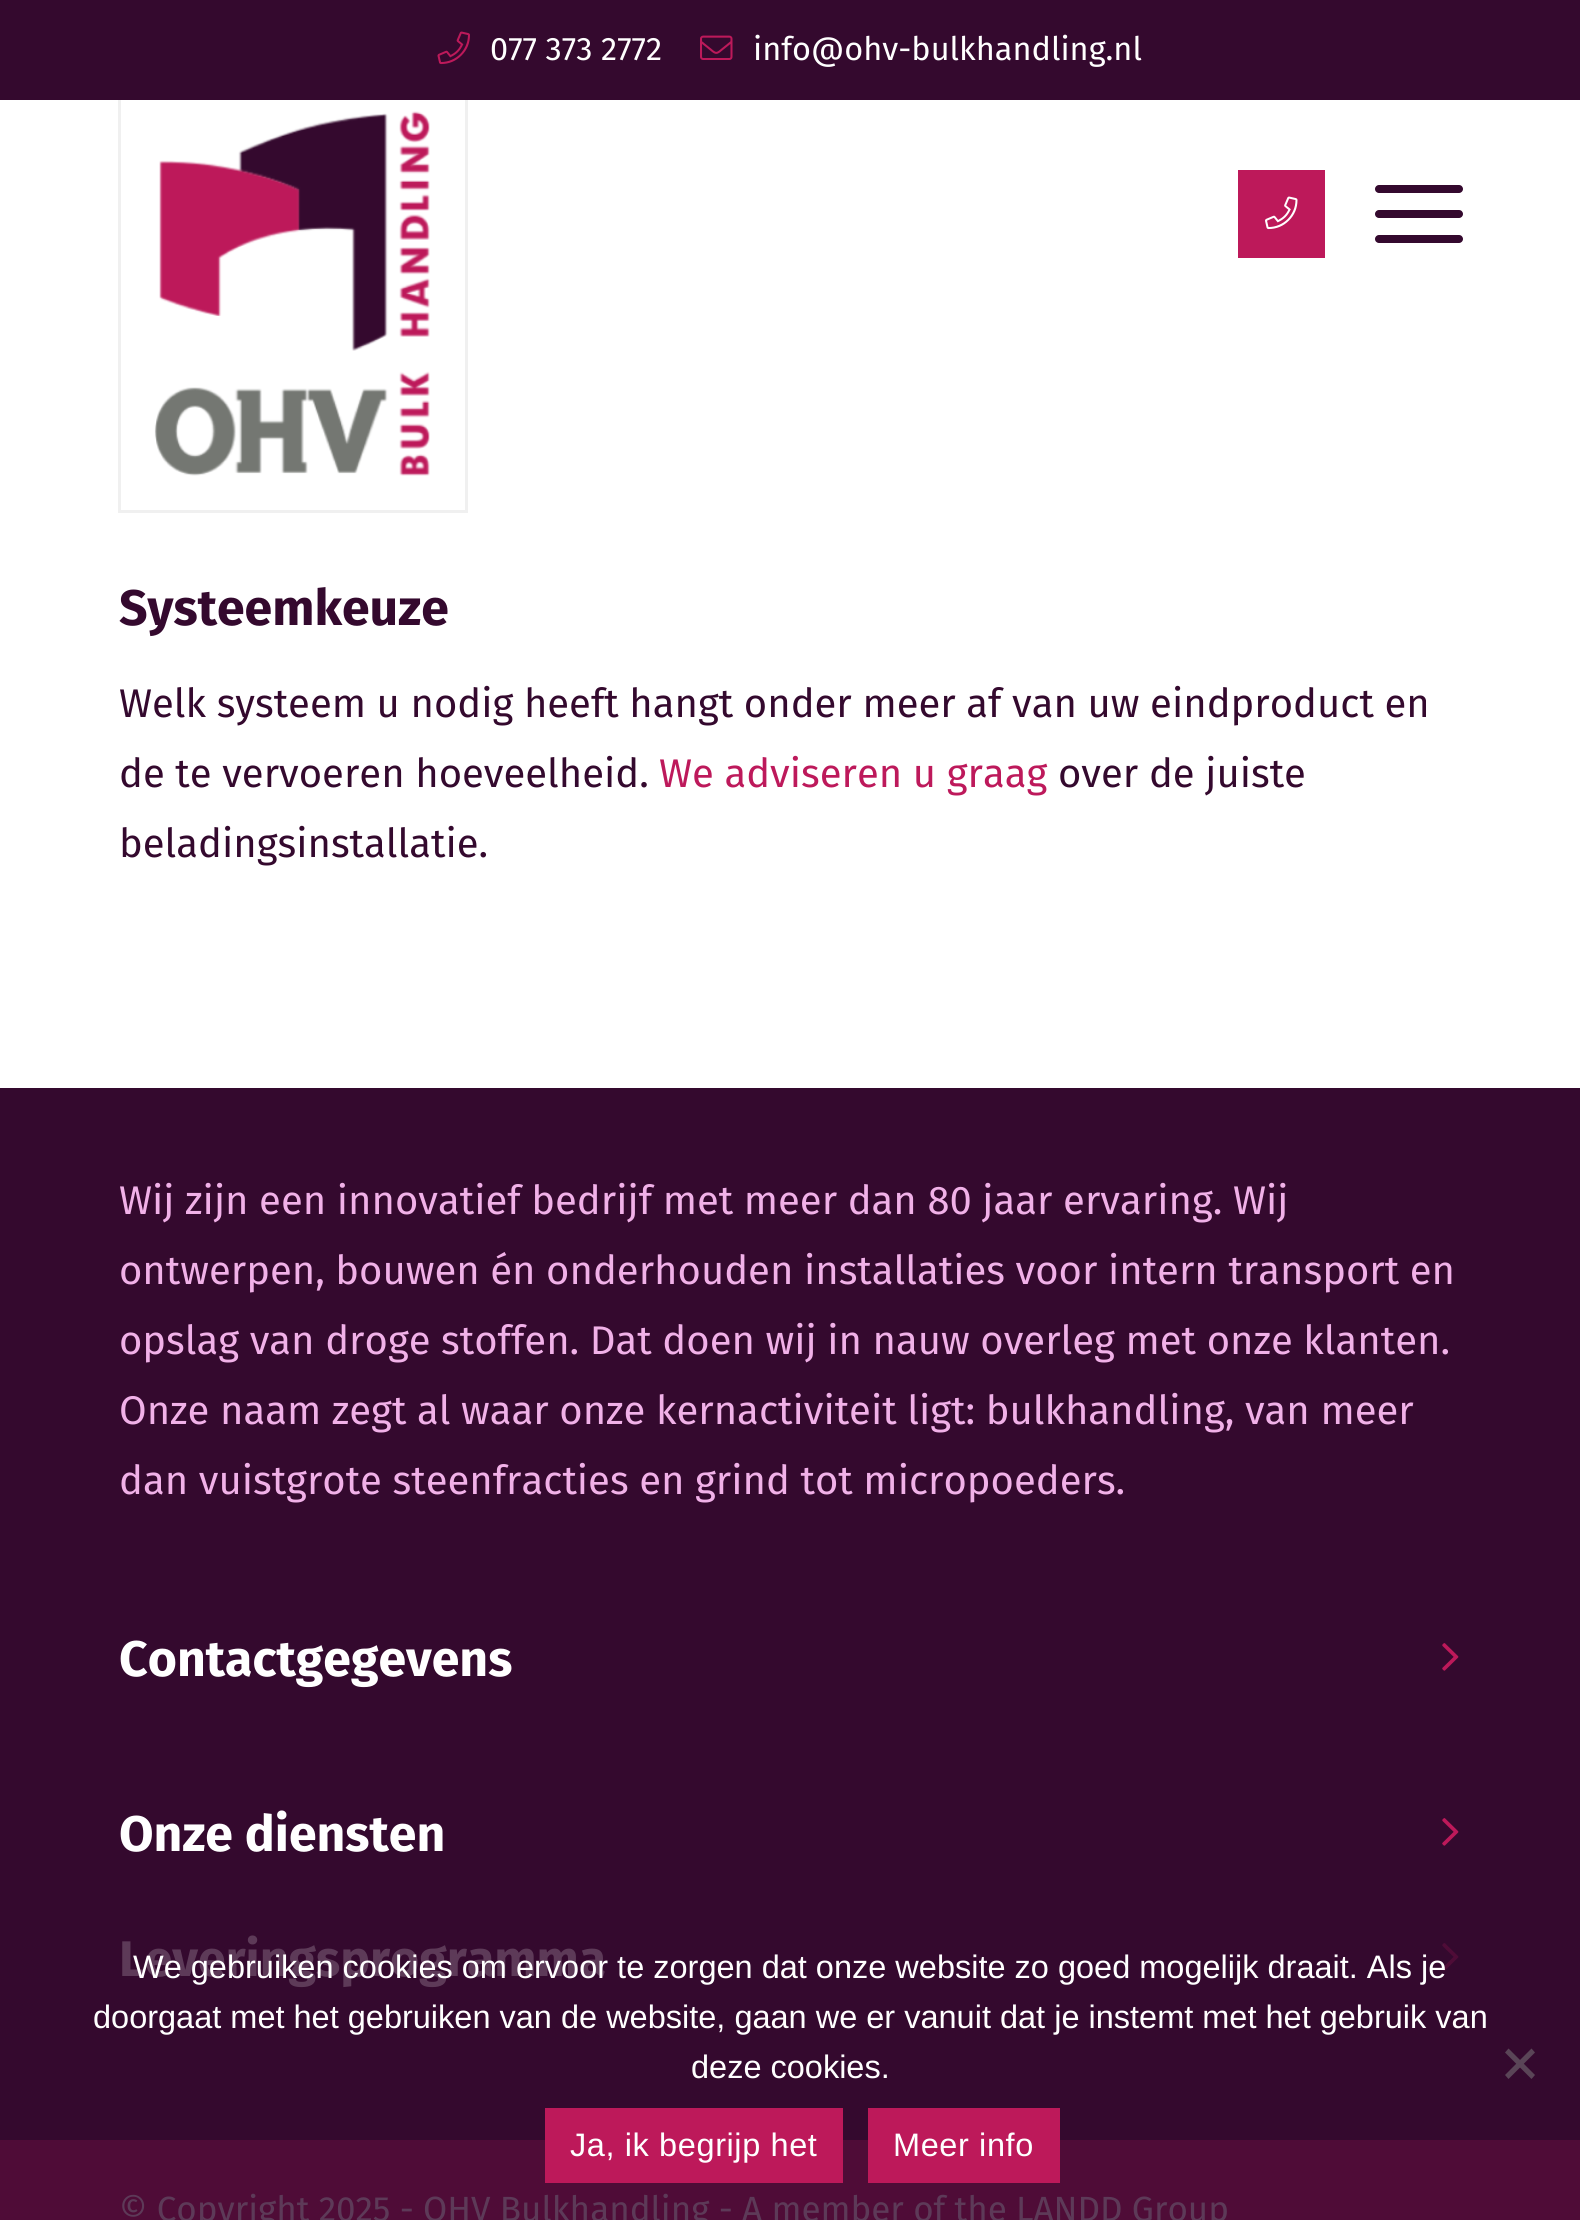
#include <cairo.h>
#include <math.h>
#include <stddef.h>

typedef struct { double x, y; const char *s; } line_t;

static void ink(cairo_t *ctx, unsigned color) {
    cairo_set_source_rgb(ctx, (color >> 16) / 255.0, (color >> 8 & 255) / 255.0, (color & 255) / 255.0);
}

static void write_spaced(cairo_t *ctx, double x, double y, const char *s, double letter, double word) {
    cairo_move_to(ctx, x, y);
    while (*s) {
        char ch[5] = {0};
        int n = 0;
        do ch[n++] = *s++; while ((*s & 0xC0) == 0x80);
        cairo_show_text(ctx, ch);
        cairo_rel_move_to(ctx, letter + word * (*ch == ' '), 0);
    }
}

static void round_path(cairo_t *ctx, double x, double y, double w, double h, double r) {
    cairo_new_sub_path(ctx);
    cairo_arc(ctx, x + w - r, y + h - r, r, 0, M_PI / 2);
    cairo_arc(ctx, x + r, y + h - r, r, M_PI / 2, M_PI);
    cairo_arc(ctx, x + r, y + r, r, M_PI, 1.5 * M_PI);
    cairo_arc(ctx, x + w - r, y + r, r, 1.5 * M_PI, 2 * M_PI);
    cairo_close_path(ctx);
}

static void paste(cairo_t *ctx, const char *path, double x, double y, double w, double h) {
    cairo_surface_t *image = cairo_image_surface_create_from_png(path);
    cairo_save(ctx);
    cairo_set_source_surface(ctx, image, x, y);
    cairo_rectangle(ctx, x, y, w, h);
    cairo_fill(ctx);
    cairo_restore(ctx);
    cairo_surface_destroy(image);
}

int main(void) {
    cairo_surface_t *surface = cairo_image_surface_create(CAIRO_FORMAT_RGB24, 1580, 2220);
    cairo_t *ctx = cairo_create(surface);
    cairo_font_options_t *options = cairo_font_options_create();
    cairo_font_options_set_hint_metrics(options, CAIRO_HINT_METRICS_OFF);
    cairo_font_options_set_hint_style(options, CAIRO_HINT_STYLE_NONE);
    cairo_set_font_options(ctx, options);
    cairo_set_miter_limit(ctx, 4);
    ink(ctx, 0xFFFFFF);
    cairo_paint(ctx);
    cairo_rectangle(ctx, 119.5, 51.5, 347, 460);
    ink(ctx, 0xF0F0F0);
    cairo_set_line_width(ctx, 3);
    cairo_stroke(ctx);
    ink(ctx, 0x34092E);
    cairo_rectangle(ctx, 0, 0, 1580, 100);
    cairo_fill(ctx);
    paste(ctx, "media/1.png", 437, 31, 33, 34);
    cairo_select_font_face(ctx, "Fira Sans", CAIRO_FONT_SLANT_NORMAL, CAIRO_FONT_WEIGHT_NORMAL);
    cairo_set_font_size(ctx, 32.5);
    ink(ctx, 0xFFFFFF);
    cairo_move_to(ctx, 490, 60);
    cairo_show_text(ctx, "077 373 2772");
    paste(ctx, "media/2.png", 700, 35, 33, 25);
    cairo_move_to(ctx, 753, 60);
    cairo_show_text(ctx, "info@ohv-bulkhandling.nl");
    paste(ctx, "media/3.png", 154, 111, 276, 365);
    ink(ctx, 0xBD195A);
    cairo_rectangle(ctx, 1238, 170, 87, 88);
    cairo_fill(ctx);
    paste(ctx, "media/4.png", 1265, 196, 33, 34);
    ink(ctx, 0x34092E);
    round_path(ctx, 1375, 210, 88, 8, 4);
    cairo_fill(ctx);
    round_path(ctx, 1375, 185, 88, 8, 4);
    cairo_fill(ctx);
    round_path(ctx, 1375, 235, 88, 8, 4);
    cairo_fill(ctx);
    cairo_select_font_face(ctx, "Fira Sans", CAIRO_FONT_SLANT_NORMAL, CAIRO_FONT_WEIGHT_BOLD);
    cairo_set_font_size(ctx, 50);
    cairo_move_to(ctx, 119, 625);
    cairo_show_text(ctx, "Systeemkeuze");
    cairo_select_font_face(ctx, "Fira Sans", CAIRO_FONT_SLANT_NORMAL, CAIRO_FONT_WEIGHT_NORMAL);
    cairo_set_font_size(ctx, 40);
    cairo_move_to(ctx, 119, 717);
    cairo_show_text(ctx, "Welk systeem u nodig heeft hangt onder meer af van uw eindproduct en");
    cairo_move_to(ctx, 119, 787);
    cairo_show_text(ctx, "de te vervoeren hoeveelheid.");
    ink(ctx, 0xBD195B);
    cairo_move_to(ctx, 659, 787);
    cairo_show_text(ctx, "We adviseren u graag");
    ink(ctx, 0x34092E);
    cairo_move_to(ctx, 1058, 787);
    cairo_show_text(ctx, "over de juiste");
    cairo_move_to(ctx, 119, 857);
    cairo_show_text(ctx, "beladingsinstallatie.");
    cairo_rectangle(ctx, 0, 1088, 1580, 1052);
    cairo_fill(ctx);
    ink(ctx, 0xF1B1E8);
    {
        static const line_t items[] = {
            {119, 1214, "Wij zijn een innovatief bedrijf met meer dan 80 jaar ervaring. Wij"},
            {119, 1284, "ontwerpen, bouwen én onderhouden installaties voor intern transport en"},
            {119, 1354, "opslag van droge stoffen. Dat doen wij in nauw overleg met onze klanten."},
            {119, 1424, "Onze naam zegt al waar onze kernactiviteit ligt: bulkhandling, van meer"},
            {119, 1494, "dan vuistgrote steenfracties en grind tot micropoeders."},
        };
        for (size_t i = 0; i < sizeof items / sizeof *items; i++) {
            cairo_move_to(ctx, items[i].x, items[i].y);
            cairo_show_text(ctx, items[i].s);
        }
    }
    cairo_select_font_face(ctx, "Fira Sans", CAIRO_FONT_SLANT_NORMAL, CAIRO_FONT_WEIGHT_BOLD);
    cairo_set_font_size(ctx, 50);
    ink(ctx, 0xFFFFFF);
    cairo_move_to(ctx, 119, 1676);
    cairo_show_text(ctx, "Contactgegevens");
    paste(ctx, "media/5.png", 1442, 1643, 17, 28);
    cairo_move_to(ctx, 119, 1851);
    cairo_show_text(ctx, "Onze diensten");
    paste(ctx, "media/5.png", 1442, 1818, 17, 28);
    ink(ctx, 0x5D3A58);
    cairo_move_to(ctx, 119, 1976);
    cairo_show_text(ctx, "Leveringsprogramma");
    paste(ctx, "media/6.png", 1442, 1943, 17, 28);
    ink(ctx, 0x4F0C37);
    cairo_rectangle(ctx, 0, 2140, 1580, 80);
    cairo_fill(ctx);
    cairo_select_font_face(ctx, "Fira Sans", CAIRO_FONT_SLANT_NORMAL, CAIRO_FONT_WEIGHT_NORMAL);
    cairo_set_font_size(ctx, 35);
    ink(ctx, 0x5D3A58);
    cairo_move_to(ctx, 119, 2221);
    cairo_show_text(ctx, "© Copyright 2025 - OHV Bulkhandling - A member of the LANDD Group");
    cairo_select_font_face(ctx, "Liberation Sans", CAIRO_FONT_SLANT_NORMAL, CAIRO_FONT_WEIGHT_NORMAL);
    cairo_set_font_size(ctx, 32.5);
    ink(ctx, 0xFFFFFF);
    {
        static const line_t items[] = {
            {133, 1978, "We gebruiken cookies om ervoor te zorgen dat onze website zo goed mogelijk draait. Als je"},
            {93, 2028, "doorgaat met het gebruiken van de website, gaan we er vanuit dat je instemt met het gebruik van"},
            {691, 2078, "deze cookies."},
        };
        for (size_t i = 0; i < sizeof items / sizeof *items; i++) {
            cairo_move_to(ctx, items[i].x, items[i].y);
            cairo_show_text(ctx, items[i].s);
        }
    }
    ink(ctx, 0x5A4557);
    cairo_new_path(ctx);
    cairo_move_to(ctx, 1531.5, 2048.5);
    cairo_line_to(ctx, 1535, 2052.5);
    cairo_line_to(ctx, 1508.5, 2079);
    cairo_line_to(ctx, 1505, 2075);
    cairo_close_path(ctx);
    cairo_fill(ctx);
    cairo_new_path(ctx);
    cairo_move_to(ctx, 1505, 2052.5);
    cairo_line_to(ctx, 1508.5, 2048.5);
    cairo_line_to(ctx, 1535, 2075);
    cairo_line_to(ctx, 1531.5, 2079);
    cairo_close_path(ctx);
    cairo_fill(ctx);
    ink(ctx, 0xBD195A);
    cairo_rectangle(ctx, 545, 2108, 298, 75);
    cairo_fill(ctx);
    ink(ctx, 0xFFFFFF);
    write_spaced(ctx, 570, 2156, "Ja, ik begrijp het", 0.6, 0);
    ink(ctx, 0xBD195A);
    cairo_rectangle(ctx, 868, 2108, 192, 75);
    cairo_fill(ctx);
    ink(ctx, 0xFFFFFF);
    write_spaced(ctx, 893, 2156, "Meer info", 0.6, 0);
    cairo_surface_write_to_png(surface, "image.png");
    cairo_font_options_destroy(options);
    cairo_destroy(ctx);
    cairo_surface_destroy(surface);
    return 0;
}
